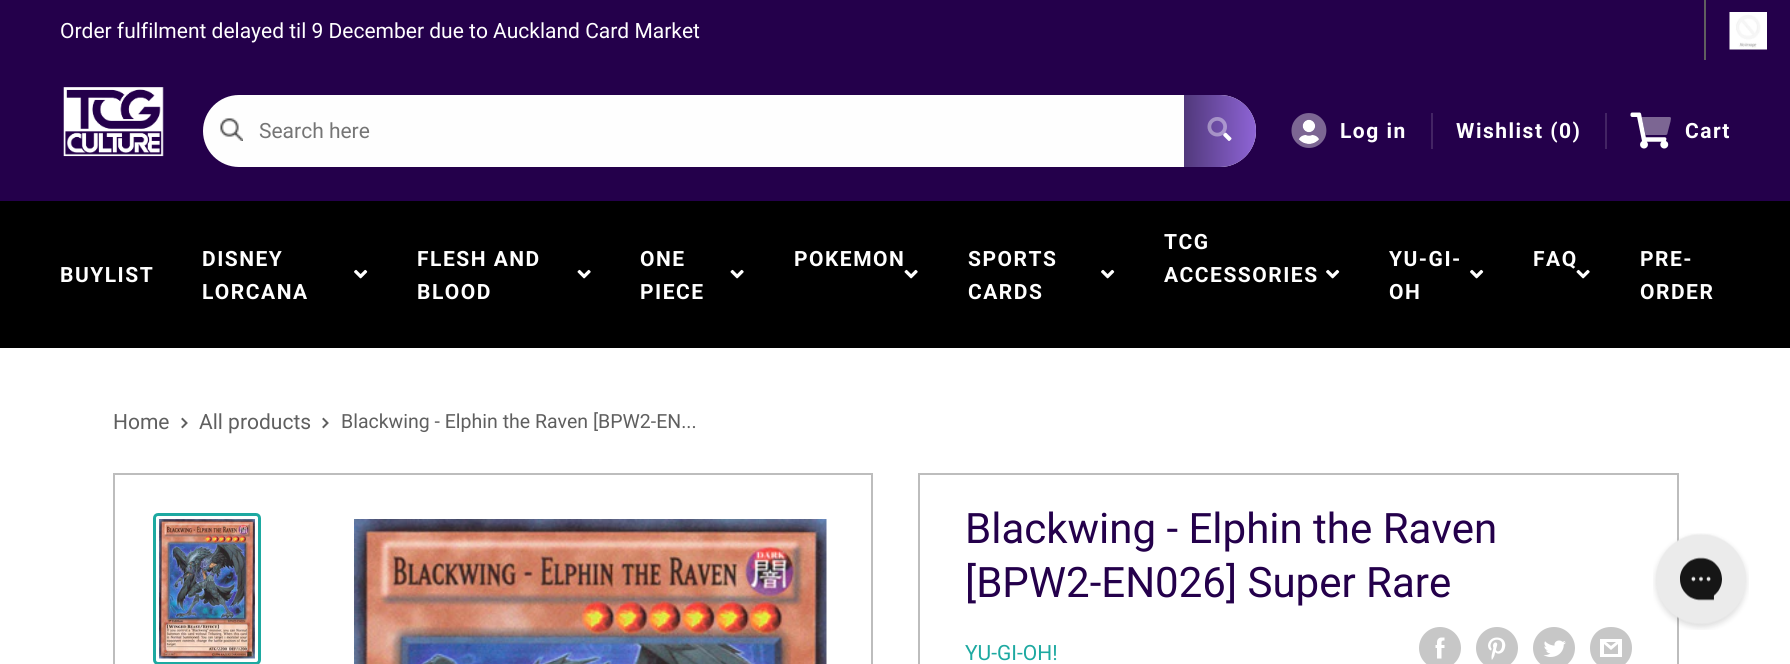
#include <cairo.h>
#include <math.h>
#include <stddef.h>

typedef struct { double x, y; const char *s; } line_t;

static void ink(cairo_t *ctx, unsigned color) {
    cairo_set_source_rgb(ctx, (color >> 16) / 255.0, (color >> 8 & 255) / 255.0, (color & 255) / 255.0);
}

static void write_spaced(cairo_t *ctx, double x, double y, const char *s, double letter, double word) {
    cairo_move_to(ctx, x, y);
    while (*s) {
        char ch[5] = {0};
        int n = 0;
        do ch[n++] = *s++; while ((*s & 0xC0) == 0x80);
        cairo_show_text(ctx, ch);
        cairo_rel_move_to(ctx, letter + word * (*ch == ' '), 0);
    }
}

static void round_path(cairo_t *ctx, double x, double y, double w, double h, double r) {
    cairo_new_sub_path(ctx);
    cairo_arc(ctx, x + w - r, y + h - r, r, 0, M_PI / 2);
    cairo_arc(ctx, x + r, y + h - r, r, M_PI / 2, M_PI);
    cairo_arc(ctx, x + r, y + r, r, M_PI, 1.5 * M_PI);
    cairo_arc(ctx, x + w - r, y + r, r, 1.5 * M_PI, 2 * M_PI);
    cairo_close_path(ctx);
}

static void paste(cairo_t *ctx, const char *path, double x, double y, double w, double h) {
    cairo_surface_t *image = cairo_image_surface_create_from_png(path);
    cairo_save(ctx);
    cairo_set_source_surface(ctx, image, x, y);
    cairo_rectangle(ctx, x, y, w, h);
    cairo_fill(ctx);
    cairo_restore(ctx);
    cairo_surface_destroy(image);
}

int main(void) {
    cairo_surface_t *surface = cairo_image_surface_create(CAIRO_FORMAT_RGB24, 1790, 664);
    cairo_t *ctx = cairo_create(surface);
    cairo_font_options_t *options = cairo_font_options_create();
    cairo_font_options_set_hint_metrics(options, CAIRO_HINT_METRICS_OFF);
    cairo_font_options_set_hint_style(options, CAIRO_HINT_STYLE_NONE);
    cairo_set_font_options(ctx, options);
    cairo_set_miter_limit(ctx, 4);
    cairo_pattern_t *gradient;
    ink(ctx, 0xFFFFFF);
    cairo_paint(ctx);
    ink(ctx, 0x24004B);
    cairo_rectangle(ctx, 0, 0, 1790, 201);
    cairo_fill(ctx);
    cairo_select_font_face(ctx, "Roboto", CAIRO_FONT_SLANT_NORMAL, CAIRO_FONT_WEIGHT_NORMAL);
    cairo_set_font_size(ctx, 21);
    ink(ctx, 0xFFFFFF);
    cairo_move_to(ctx, 60, 38);
    cairo_show_text(ctx, "Order fulfilment delayed til 9 December due to Auckland Card Market");
    ink(ctx, 0x5F5F5F);
    cairo_rectangle(ctx, 1704, 0, 2, 60);
    cairo_fill(ctx);
    paste(ctx, "media/1.png", 1729, 12, 38, 38);
    paste(ctx, "media/2.png", 63, 87, 101, 70);
    ink(ctx, 0xFEFEFE);
    round_path(ctx, 203, 95, 1053, 72, 36);
    cairo_fill(ctx);
    paste(ctx, "media/3.png", 220, 118, 23, 23);
    ink(ctx, 0x757575);
    cairo_move_to(ctx, 259, 138);
    cairo_show_text(ctx, "Search here");
    gradient = cairo_pattern_create_linear(1256, 131, 1183, 130);
    cairo_pattern_add_color_stop_rgba(gradient, 0, 0.557, 0.392, 0.839, 1);
    cairo_pattern_add_color_stop_rgba(gradient, 1, 0.314, 0.22, 0.478, 1);
    cairo_set_source(ctx, gradient);
    cairo_pattern_destroy(gradient);
    cairo_new_path(ctx);
    cairo_move_to(ctx, 1184, 95);
    cairo_line_to(ctx, 1220, 95);
    cairo_curve_to(ctx, 1240, 95, 1256, 111, 1256, 131);
    cairo_curve_to(ctx, 1256, 151, 1240, 167, 1220, 167);
    cairo_line_to(ctx, 1184, 167);
    cairo_close_path(ctx);
    cairo_fill(ctx);
    paste(ctx, "media/5.png", 1223, 132, 9, 9);
    paste(ctx, "media/4.png", 1207, 117, 20, 20);
    ink(ctx, 0x432464);
    cairo_rectangle(ctx, 1431, 113, 2, 36);
    cairo_fill(ctx);
    paste(ctx, "media/7.png", 1298, 119, 22, 25);
    paste(ctx, "media/6.png", 1291, 113, 36, 35);
    cairo_select_font_face(ctx, "Roboto", CAIRO_FONT_SLANT_NORMAL, CAIRO_FONT_WEIGHT_BOLD);
    ink(ctx, 0xFFFFFF);
    write_spaced(ctx, 1340, 138, "Log in", 1.5, 0);
    ink(ctx, 0x432464);
    cairo_rectangle(ctx, 1605, 113, 2, 36);
    cairo_fill(ctx);
    ink(ctx, 0xFFFFFF);
    write_spaced(ctx, 1456, 138, "Wishlist (0)", 1.5, 0);
    paste(ctx, "media/8.png", 1630, 112, 39, 37);
    cairo_set_source_rgba(ctx, 1, 1, 1, 0.4);
    cairo_new_path(ctx);
    cairo_move_to(ctx, 1669.5, 117);
    cairo_curve_to(ctx, 1672, 117, 1670.5, 120, 1670.5, 121.5);
    cairo_line_to(ctx, 1668, 131);
    cairo_curve_to(ctx, 1667, 135.5, 1667.5, 135, 1662.5, 135);
    cairo_line_to(ctx, 1645.5, 135);
    cairo_line_to(ctx, 1641.5, 117);
    cairo_close_path(ctx);
    cairo_fill(ctx);
    ink(ctx, 0xFFFFFF);
    write_spaced(ctx, 1685, 138, "Cart", 1.5, 0);
    ink(ctx, 0x000000);
    cairo_rectangle(ctx, 0, 201, 1790, 147);
    cairo_fill(ctx);
    ink(ctx, 0xFFFFFF);
    write_spaced(ctx, 60, 282, "BUYLIST", 1.5, 0);
    write_spaced(ctx, 202, 266, "DISNEY", 1.5, 0);
    paste(ctx, "media/9.png", 354, 269, 14, 10);
    write_spaced(ctx, 202, 299, "LORCANA", 1.5, 0);
    write_spaced(ctx, 417, 266, "FLESH AND", 1.5, 0);
    paste(ctx, "media/10.png", 577, 269, 14, 10);
    write_spaced(ctx, 417, 299, "BLOOD", 1.5, 0);
    write_spaced(ctx, 640, 266, "ONE", 1.5, 0);
    paste(ctx, "media/10.png", 730, 269, 14, 10);
    write_spaced(ctx, 640, 299, "PIECE", 1.5, 0);
    write_spaced(ctx, 794, 266, "POKEMON", 1.5, 0);
    paste(ctx, "media/10.png", 904, 269, 14, 10);
    write_spaced(ctx, 968, 266, "SPORTS", 1.5, 0);
    paste(ctx, "media/9.png", 1101, 269, 14, 10);
    {
        static const line_t items[] = {
            {968, 299, "CARDS"},
            {1164, 249, "TCG"},
            {1164, 282, "ACCESSORIES"},
        };
        for (size_t i = 0; i < sizeof items / sizeof *items; i++) {
            write_spaced(ctx, items[i].x, items[i].y, items[i].s, 1.5, 0);
        }
    }
    paste(ctx, "media/9.png", 1326, 269, 14, 10);
    write_spaced(ctx, 1389, 266, "YU-GI-", 1.5, 0);
    paste(ctx, "media/9.png", 1470, 269, 14, 10);
    write_spaced(ctx, 1389, 299, "OH", 1.5, 0);
    write_spaced(ctx, 1533, 266, "FAQ", 1.5, 0);
    paste(ctx, "media/10.png", 1576, 269, 14, 10);
    write_spaced(ctx, 1640, 266, "PRE-", 1.5, 0);
    write_spaced(ctx, 1640, 299, "ORDER", 1.5, 0);
    cairo_select_font_face(ctx, "Roboto", CAIRO_FONT_SLANT_NORMAL, CAIRO_FONT_WEIGHT_NORMAL);
    ink(ctx, 0x5F5F5F);
    cairo_move_to(ctx, 113, 429);
    cairo_show_text(ctx, "Home");
    cairo_new_path(ctx);
    cairo_move_to(ctx, 182.5, 419);
    cairo_line_to(ctx, 186.5, 423);
    cairo_line_to(ctx, 182.5, 427);
    cairo_set_line_cap(ctx, CAIRO_LINE_CAP_SQUARE);
    cairo_stroke(ctx);
    cairo_move_to(ctx, 199, 429);
    cairo_show_text(ctx, "All products");
    cairo_new_path(ctx);
    cairo_move_to(ctx, 323.5, 419);
    cairo_line_to(ctx, 327.5, 423);
    cairo_line_to(ctx, 323.5, 427);
    cairo_stroke(ctx);
    cairo_set_font_size(ctx, 19.5);
    cairo_move_to(ctx, 341, 428);
    cairo_show_text(ctx, "Blackwing - Elphin the Raven [BPW2-EN...");
    cairo_rectangle(ctx, 114, 474, 758, 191);
    ink(ctx, 0xBDBDBD);
    cairo_set_line_cap(ctx, CAIRO_LINE_CAP_BUTT);
    cairo_stroke(ctx);
    round_path(ctx, 154.5, 514.5, 105, 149, 3.5);
    ink(ctx, 0x1DA9A1);
    cairo_set_line_width(ctx, 3);
    cairo_stroke(ctx);
    paste(ctx, "media/11.png", 159, 519, 96, 140);
    paste(ctx, "media/12.png", 354, 519, 473, 145);
    cairo_rectangle(ctx, 919, 474, 759, 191);
    ink(ctx, 0xBDBDBD);
    cairo_set_line_width(ctx, 2);
    cairo_stroke(ctx);
    cairo_set_font_size(ctx, 42);
    ink(ctx, 0x24004B);
    cairo_move_to(ctx, 965, 543);
    cairo_show_text(ctx, "Blackwing - Elphin the Raven");
    cairo_move_to(ctx, 965, 597);
    cairo_show_text(ctx, "[BPW2-EN026] Super Rare");
    cairo_set_font_size(ctx, 21);
    ink(ctx, 0x1DA9A1);
    cairo_move_to(ctx, 965, 660);
    cairo_show_text(ctx, "YU-GI-OH!");
    paste(ctx, "media/13.png", 1419, 627, 42, 37);
    paste(ctx, "media/14.png", 1476, 627, 42, 37);
    paste(ctx, "media/15.png", 1533, 627, 42, 37);
    ink(ctx, 0xC7C7C7);
    cairo_new_path(ctx);
    cairo_move_to(ctx, 1611, 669);
    cairo_curve_to(ctx, 1583, 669, 1583, 627, 1611, 627);
    cairo_curve_to(ctx, 1639, 627, 1639, 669, 1611, 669);
    cairo_close_path(ctx);
    cairo_move_to(ctx, 1606, 642);
    cairo_line_to(ctx, 1616, 642);
    cairo_line_to(ctx, 1611, 646);
    cairo_close_path(ctx);
    cairo_move_to(ctx, 1618, 644);
    cairo_line_to(ctx, 1618, 654);
    cairo_line_to(ctx, 1604, 654);
    cairo_line_to(ctx, 1604, 644);
    cairo_line_to(ctx, 1611, 650);
    cairo_close_path(ctx);
    cairo_move_to(ctx, 1622, 639);
    cairo_line_to(ctx, 1600, 639);
    cairo_line_to(ctx, 1600, 657);
    cairo_line_to(ctx, 1622, 657);
    cairo_close_path(ctx);
    cairo_fill(ctx);
    paste(ctx, "media/16.png", 1653, 533, 96, 97);
    cairo_surface_write_to_png(surface, "image.png");
    cairo_font_options_destroy(options);
    cairo_destroy(ctx);
    cairo_surface_destroy(surface);
    return 0;
}
